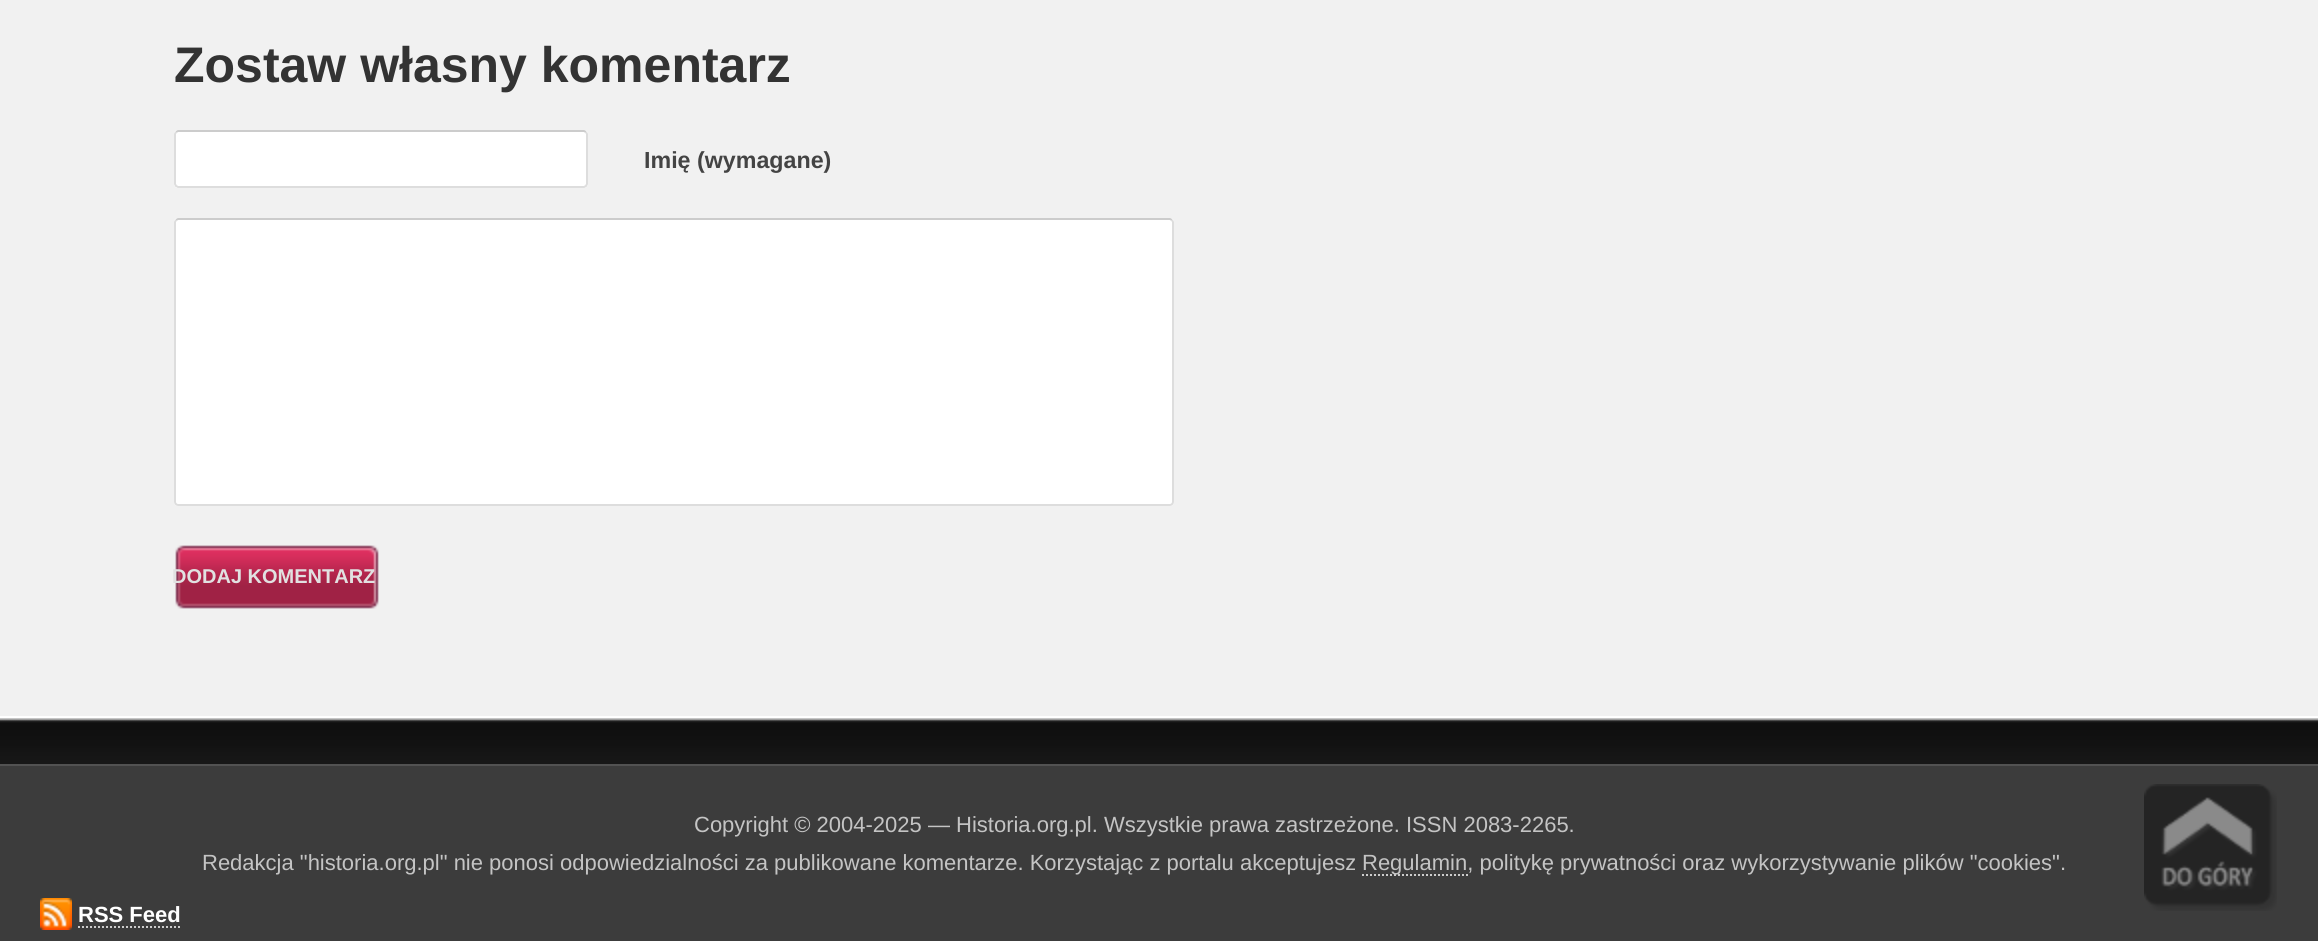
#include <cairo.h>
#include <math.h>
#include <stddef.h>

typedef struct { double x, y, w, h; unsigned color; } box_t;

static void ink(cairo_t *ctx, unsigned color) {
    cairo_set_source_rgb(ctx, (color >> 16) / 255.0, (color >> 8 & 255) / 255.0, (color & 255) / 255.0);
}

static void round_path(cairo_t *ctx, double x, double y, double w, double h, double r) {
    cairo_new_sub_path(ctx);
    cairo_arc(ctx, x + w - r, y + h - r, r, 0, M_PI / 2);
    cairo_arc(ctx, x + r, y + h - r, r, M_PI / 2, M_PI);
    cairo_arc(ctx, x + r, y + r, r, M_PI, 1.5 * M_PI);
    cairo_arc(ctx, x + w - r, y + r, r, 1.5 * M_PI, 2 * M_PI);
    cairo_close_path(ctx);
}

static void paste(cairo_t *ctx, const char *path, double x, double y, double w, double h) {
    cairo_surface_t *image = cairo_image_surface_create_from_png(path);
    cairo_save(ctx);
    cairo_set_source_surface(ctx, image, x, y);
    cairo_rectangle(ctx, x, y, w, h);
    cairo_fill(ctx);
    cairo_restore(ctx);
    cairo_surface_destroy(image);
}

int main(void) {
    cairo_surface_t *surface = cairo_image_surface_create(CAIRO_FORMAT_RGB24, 2318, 941);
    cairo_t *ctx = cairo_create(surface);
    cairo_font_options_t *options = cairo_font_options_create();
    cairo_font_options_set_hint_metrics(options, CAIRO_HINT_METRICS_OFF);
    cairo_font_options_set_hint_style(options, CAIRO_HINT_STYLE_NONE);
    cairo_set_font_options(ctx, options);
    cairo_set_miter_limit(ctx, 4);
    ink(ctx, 0xF1F1F1);
    cairo_paint(ctx);
    cairo_select_font_face(ctx, "Liberation Sans", CAIRO_FONT_SLANT_NORMAL, CAIRO_FONT_WEIGHT_BOLD);
    cairo_set_font_size(ctx, 50);
    ink(ctx, 0x333333);
    cairo_move_to(ctx, 174, 82);
    cairo_show_text(ctx, "Zostaw własny komentarz");
    ink(ctx, 0xFFFFFF);
    round_path(ctx, 174, 130, 414, 58, 4);
    cairo_fill(ctx);
    cairo_new_path(ctx);
    cairo_move_to(ctx, 176, 132);
    cairo_line_to(ctx, 178, 131);
    cairo_line_to(ctx, 584, 131);
    cairo_line_to(ctx, 586, 132);
    ink(ctx, 0xCCCCCC);
    cairo_stroke(ctx);
    cairo_new_path(ctx);
    cairo_move_to(ctx, 586, 132);
    cairo_line_to(ctx, 587, 134);
    cairo_line_to(ctx, 587, 184);
    cairo_line_to(ctx, 586, 186);
    cairo_line_to(ctx, 584, 187);
    cairo_line_to(ctx, 178, 187);
    cairo_line_to(ctx, 176, 186);
    cairo_line_to(ctx, 175, 184);
    cairo_line_to(ctx, 175, 134);
    cairo_line_to(ctx, 176, 132);
    ink(ctx, 0xDDDDDD);
    cairo_stroke(ctx);
    cairo_set_font_size(ctx, 23.25);
    ink(ctx, 0x444444);
    cairo_move_to(ctx, 644, 168);
    cairo_show_text(ctx, "Imię (wymagane)");
    ink(ctx, 0xFFFFFF);
    round_path(ctx, 174, 218, 1000, 288, 4);
    cairo_fill(ctx);
    cairo_new_path(ctx);
    cairo_move_to(ctx, 176, 220);
    cairo_line_to(ctx, 178, 219);
    cairo_line_to(ctx, 1170, 219);
    cairo_line_to(ctx, 1172, 220);
    ink(ctx, 0xCCCCCC);
    cairo_stroke(ctx);
    cairo_new_path(ctx);
    cairo_move_to(ctx, 1172, 220);
    cairo_line_to(ctx, 1173, 222);
    cairo_line_to(ctx, 1173, 502);
    cairo_curve_to(ctx, 1173, 503.5, 1171.5, 505, 1170, 505);
    cairo_line_to(ctx, 178, 505);
    cairo_curve_to(ctx, 176.5, 505, 175, 503.5, 175, 502);
    cairo_line_to(ctx, 175, 222);
    cairo_line_to(ctx, 176, 220);
    ink(ctx, 0xDDDDDD);
    cairo_stroke(ctx);
    paste(ctx, "media/1.png", 175, 545, 204, 64);
    cairo_set_font_size(ctx, 20);
    ink(ctx, 0xE1E1E1);
    cairo_move_to(ctx, 172, 583);
    cairo_show_text(ctx, "DODAJ KOMENTARZ");
    paste(ctx, "media/2.png", 0, 718, 2318, 46);
    {
        static const box_t items[] = {
            {0, 716, 2318, 2, 0xFFFFFF},
            {0, 766, 2318, 175, 0x3C3C3C},
            {0, 764, 2318, 2, 0x525252},
        };
        for (size_t i = 0; i < sizeof items / sizeof *items; i++) {
            ink(ctx, items[i].color);
            cairo_rectangle(ctx, items[i].x, items[i].y, items[i].w, items[i].h);
            cairo_fill(ctx);
        }
    }
    cairo_select_font_face(ctx, "Liberation Sans", CAIRO_FONT_SLANT_NORMAL, CAIRO_FONT_WEIGHT_NORMAL);
    cairo_set_font_size(ctx, 22);
    ink(ctx, 0xC4C4C4);
    cairo_move_to(ctx, 694, 832);
    cairo_show_text(ctx, "Copyright © 2004-2025 — Historia.org.pl. Wszystkie prawa zastrzeżone. ISSN 2083-2265.");
    cairo_move_to(ctx, 202, 870);
    cairo_show_text(ctx, "Redakcja \"historia.org.pl\" nie ponosi odpowiedzialności za publikowane komentarze. Korzystając z portalu akceptujesz");
    cairo_new_path(ctx);
    cairo_move_to(ctx, 1362, 875);
    cairo_line_to(ctx, 1468, 875);
    ink(ctx, 0xCCCCCC);
    cairo_set_dash(ctx, (double[]){2, 2}, 2, 0);
    cairo_stroke(ctx);
    ink(ctx, 0xC4C4C4);
    cairo_move_to(ctx, 1362, 870);
    cairo_show_text(ctx, "Regulamin, politykę prywatności oraz wykorzystywanie plików \"cookies\".");
    paste(ctx, "media/3.png", 2144, 784, 133, 127);
    paste(ctx, "media/4.png", 40, 898, 32, 32);
    cairo_select_font_face(ctx, "Liberation Sans", CAIRO_FONT_SLANT_NORMAL, CAIRO_FONT_WEIGHT_BOLD);
    ink(ctx, 0xFFFFFF);
    cairo_move_to(ctx, 78, 922);
    cairo_show_text(ctx, "RSS Feed");
    cairo_new_path(ctx);
    cairo_move_to(ctx, 78, 927);
    cairo_line_to(ctx, 180, 927);
    ink(ctx, 0xCCCCCC);
    cairo_stroke(ctx);
    cairo_surface_write_to_png(surface, "image.png");
    cairo_font_options_destroy(options);
    cairo_destroy(ctx);
    cairo_surface_destroy(surface);
    return 0;
}
